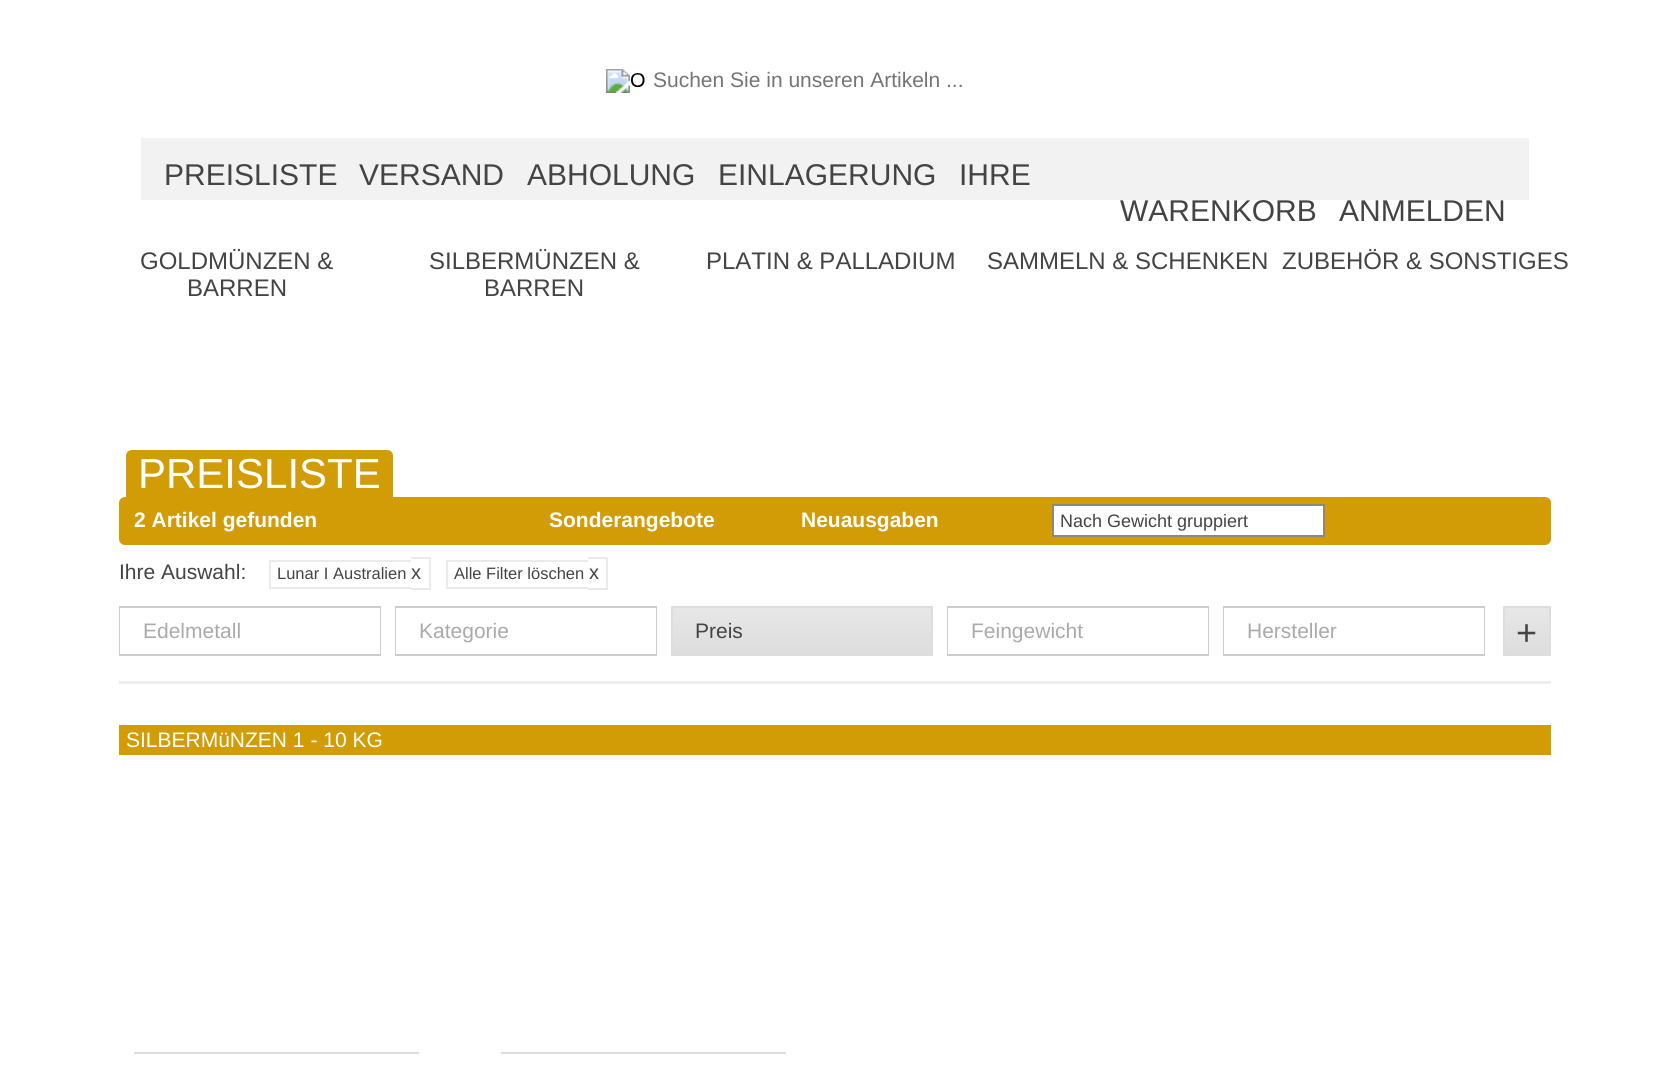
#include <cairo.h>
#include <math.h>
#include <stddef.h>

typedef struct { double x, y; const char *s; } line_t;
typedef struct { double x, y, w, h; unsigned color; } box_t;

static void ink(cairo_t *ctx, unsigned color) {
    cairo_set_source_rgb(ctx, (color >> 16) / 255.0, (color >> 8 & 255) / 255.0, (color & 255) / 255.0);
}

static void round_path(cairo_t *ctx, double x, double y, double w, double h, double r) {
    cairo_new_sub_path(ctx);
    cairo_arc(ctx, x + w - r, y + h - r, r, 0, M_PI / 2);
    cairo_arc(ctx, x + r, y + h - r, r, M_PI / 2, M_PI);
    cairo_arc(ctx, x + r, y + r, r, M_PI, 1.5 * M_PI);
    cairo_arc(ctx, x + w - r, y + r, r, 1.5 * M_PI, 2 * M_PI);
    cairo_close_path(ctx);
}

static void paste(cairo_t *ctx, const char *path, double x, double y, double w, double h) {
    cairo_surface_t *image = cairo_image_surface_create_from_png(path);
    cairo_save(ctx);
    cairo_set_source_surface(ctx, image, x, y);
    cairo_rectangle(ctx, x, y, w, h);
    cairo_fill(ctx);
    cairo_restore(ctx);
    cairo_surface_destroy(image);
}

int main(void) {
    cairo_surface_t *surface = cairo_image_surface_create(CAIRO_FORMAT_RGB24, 1669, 1068);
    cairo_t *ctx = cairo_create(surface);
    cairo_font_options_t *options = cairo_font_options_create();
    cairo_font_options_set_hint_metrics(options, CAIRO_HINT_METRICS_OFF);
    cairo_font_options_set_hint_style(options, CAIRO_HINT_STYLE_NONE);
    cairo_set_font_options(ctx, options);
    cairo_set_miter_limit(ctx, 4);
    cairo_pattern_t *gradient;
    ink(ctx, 0xFFFFFF);
    cairo_paint(ctx);
    paste(ctx, "media/1.png", 606, 69, 39, 24);
    cairo_select_font_face(ctx, "Liberation Sans", CAIRO_FONT_SLANT_NORMAL, CAIRO_FONT_WEIGHT_NORMAL);
    cairo_set_font_size(ctx, 21);
    ink(ctx, 0x757575);
    cairo_move_to(ctx, 653, 87);
    cairo_show_text(ctx, "Suchen Sie in unseren Artikeln ...");
    ink(ctx, 0xF2F2F2);
    cairo_rectangle(ctx, 141, 138, 1388, 62);
    cairo_fill(ctx);
    cairo_set_font_size(ctx, 30);
    ink(ctx, 0x444444);
    {
        static const line_t items[] = {
            {164, 185, "PREISLISTE"},
            {359, 185, "VERSAND"},
            {527, 185, "ABHOLUNG"},
            {718, 185, "EINLAGERUNG"},
            {959, 185, "IHRE"},
            {1120, 221, "WARENKORB"},
            {1339, 221, "ANMELDEN"},
        };
        for (size_t i = 0; i < sizeof items / sizeof *items; i++) {
            cairo_move_to(ctx, items[i].x, items[i].y);
            cairo_show_text(ctx, items[i].s);
        }
    }
    cairo_set_font_size(ctx, 24);
    {
        static const line_t items[] = {
            {140, 269, "GOLDMÜNZEN &"},
            {187, 296, "BARREN"},
            {429, 269, "SILBERMÜNZEN &"},
            {484, 296, "BARREN"},
            {706, 269, "PLATIN & PALLADIUM"},
            {987, 269, "SAMMELN & SCHENKEN"},
            {1282, 269, "ZUBEHÖR & SONSTIGES"},
        };
        for (size_t i = 0; i < sizeof items / sizeof *items; i++) {
            cairo_move_to(ctx, items[i].x, items[i].y);
            cairo_show_text(ctx, items[i].s);
        }
    }
    ink(ctx, 0xD29C06);
    cairo_new_path(ctx);
    cairo_move_to(ctx, 132, 450);
    cairo_line_to(ctx, 387, 450);
    cairo_curve_to(ctx, 390.5, 450, 393, 452.5, 393, 456);
    cairo_line_to(ctx, 393, 497);
    cairo_line_to(ctx, 126, 497);
    cairo_line_to(ctx, 126, 456);
    cairo_curve_to(ctx, 126, 452.5, 128.5, 450, 132, 450);
    cairo_close_path(ctx);
    cairo_fill(ctx);
    cairo_set_font_size(ctx, 42);
    ink(ctx, 0xFFFFFF);
    cairo_move_to(ctx, 138, 488);
    cairo_show_text(ctx, "PREISLISTE");
    ink(ctx, 0xD29C06);
    round_path(ctx, 119, 497, 1432, 48, 6);
    cairo_fill(ctx);
    cairo_select_font_face(ctx, "Liberation Sans", CAIRO_FONT_SLANT_NORMAL, CAIRO_FONT_WEIGHT_BOLD);
    cairo_set_font_size(ctx, 21);
    ink(ctx, 0xFFFFFF);
    {
        static const line_t items[] = {
            {134, 527, "2 Artikel gefunden"},
            {549, 527, "Sonderangebote"},
            {801, 527, "Neuausgaben"},
        };
        for (size_t i = 0; i < sizeof items / sizeof *items; i++) {
            cairo_move_to(ctx, items[i].x, items[i].y);
            cairo_show_text(ctx, items[i].s);
        }
    }
    cairo_rectangle(ctx, 1053, 505, 271, 31);
    cairo_fill_preserve(ctx);
    ink(ctx, 0x888888);
    cairo_stroke(ctx);
    cairo_select_font_face(ctx, "Liberation Sans", CAIRO_FONT_SLANT_NORMAL, CAIRO_FONT_WEIGHT_NORMAL);
    cairo_set_font_size(ctx, 18);
    ink(ctx, 0x444444);
    cairo_move_to(ctx, 1060, 527);
    cairo_show_text(ctx, "Nach Gewicht gruppiert");
    cairo_set_font_size(ctx, 21);
    cairo_move_to(ctx, 119, 579);
    cairo_show_text(ctx, "Ihre Auswahl:");
    cairo_set_font_size(ctx, 16.5);
    cairo_move_to(ctx, 277, 579);
    cairo_show_text(ctx, "Lunar I Australien");
    {
        static const box_t items[] = {
            {269, 560, 142, 2, 0xEAEAEA},
            {269, 587, 142, 2, 0xEAEAEA},
            {269, 560, 2, 28, 0xEAEAEA},
        };
        for (size_t i = 0; i < sizeof items / sizeof *items; i++) {
            ink(ctx, items[i].color);
            cairo_rectangle(ctx, items[i].x, items[i].y, items[i].w, items[i].h);
            cairo_fill(ctx);
        }
    }
    cairo_set_font_size(ctx, 20);
    ink(ctx, 0x444444);
    cairo_move_to(ctx, 411, 579);
    cairo_show_text(ctx, "x");
    {
        static const box_t items[] = {
            {411, 557, 20, 2, 0xEAEAEA},
            {429, 557, 2, 33, 0xEAEAEA},
            {411, 588, 20, 2, 0xEAEAEA},
        };
        for (size_t i = 0; i < sizeof items / sizeof *items; i++) {
            ink(ctx, items[i].color);
            cairo_rectangle(ctx, items[i].x, items[i].y, items[i].w, items[i].h);
            cairo_fill(ctx);
        }
    }
    cairo_set_font_size(ctx, 16.5);
    ink(ctx, 0x444444);
    cairo_move_to(ctx, 454, 579);
    cairo_show_text(ctx, "Alle Filter löschen");
    {
        static const box_t items[] = {
            {446, 560, 142, 2, 0xEAEAEA},
            {446, 587, 142, 2, 0xEAEAEA},
            {446, 560, 2, 28, 0xEAEAEA},
        };
        for (size_t i = 0; i < sizeof items / sizeof *items; i++) {
            ink(ctx, items[i].color);
            cairo_rectangle(ctx, items[i].x, items[i].y, items[i].w, items[i].h);
            cairo_fill(ctx);
        }
    }
    cairo_set_font_size(ctx, 20);
    ink(ctx, 0x444444);
    cairo_move_to(ctx, 589, 579);
    cairo_show_text(ctx, "x");
    {
        static const box_t items[] = {
            {588, 557, 20, 2, 0xEAEAEA},
            {606, 557, 2, 33, 0xEAEAEA},
            {588, 588, 20, 2, 0xEAEAEA},
        };
        for (size_t i = 0; i < sizeof items / sizeof *items; i++) {
            ink(ctx, items[i].color);
            cairo_rectangle(ctx, items[i].x, items[i].y, items[i].w, items[i].h);
            cairo_fill(ctx);
        }
    }
    cairo_rectangle(ctx, 120, 607, 260, 48);
    ink(ctx, 0xCCCCCC);
    cairo_stroke(ctx);
    ink(ctx, 0xFFFFFF);
    cairo_rectangle(ctx, 120, 608, 260, 46);
    cairo_fill(ctx);
    cairo_set_font_size(ctx, 21);
    ink(ctx, 0xAAAAAA);
    cairo_move_to(ctx, 143, 638);
    cairo_show_text(ctx, "Edelmetall");
    cairo_rectangle(ctx, 396, 607, 260, 48);
    ink(ctx, 0xCCCCCC);
    cairo_stroke(ctx);
    ink(ctx, 0xFFFFFF);
    cairo_rectangle(ctx, 396, 608, 260, 46);
    cairo_fill(ctx);
    ink(ctx, 0xAAAAAA);
    cairo_move_to(ctx, 419, 638);
    cairo_show_text(ctx, "Kategorie");
    gradient = cairo_pattern_create_linear(802, 654, 802, 608);
    cairo_pattern_add_color_stop_rgba(gradient, 0, 0.867, 0.867, 0.867, 1);
    cairo_pattern_add_color_stop_rgba(gradient, 1, 0.906, 0.906, 0.906, 1);
    cairo_set_source(ctx, gradient);
    cairo_pattern_destroy(gradient);
    cairo_rectangle(ctx, 673, 608, 258, 46);
    cairo_fill(ctx);
    cairo_rectangle(ctx, 672, 607, 260, 48);
    ink(ctx, 0xDDDDDD);
    cairo_stroke(ctx);
    ink(ctx, 0x444444);
    cairo_move_to(ctx, 695, 638);
    cairo_show_text(ctx, "Preis");
    cairo_rectangle(ctx, 948, 607, 260, 48);
    ink(ctx, 0xCCCCCC);
    cairo_stroke(ctx);
    ink(ctx, 0xFFFFFF);
    cairo_rectangle(ctx, 948, 608, 260, 46);
    cairo_fill(ctx);
    ink(ctx, 0xAAAAAA);
    cairo_move_to(ctx, 971, 638);
    cairo_show_text(ctx, "Feingewicht");
    cairo_rectangle(ctx, 1224, 607, 260, 48);
    ink(ctx, 0xCCCCCC);
    cairo_stroke(ctx);
    ink(ctx, 0xFFFFFF);
    cairo_rectangle(ctx, 1224, 608, 260, 46);
    cairo_fill(ctx);
    ink(ctx, 0xAAAAAA);
    cairo_move_to(ctx, 1247, 638);
    cairo_show_text(ctx, "Hersteller");
    gradient = cairo_pattern_create_linear(1527, 654, 1527, 608);
    cairo_pattern_add_color_stop_rgba(gradient, 0, 0.867, 0.867, 0.867, 1);
    cairo_pattern_add_color_stop_rgba(gradient, 1, 0.906, 0.906, 0.906, 1);
    cairo_set_source(ctx, gradient);
    cairo_pattern_destroy(gradient);
    cairo_rectangle(ctx, 1505, 608, 44, 46);
    cairo_fill(ctx);
    cairo_rectangle(ctx, 1504, 607, 46, 48);
    ink(ctx, 0xDDDDDD);
    cairo_stroke(ctx);
    cairo_set_font_size(ctx, 36);
    ink(ctx, 0x444444);
    cairo_move_to(ctx, 1516, 645);
    cairo_show_text(ctx, "+");
    ink(ctx, 0xEEEEEE);
    cairo_rectangle(ctx, 119, 681, 1432, 3);
    cairo_fill(ctx);
    ink(ctx, 0xD29C06);
    cairo_rectangle(ctx, 119, 725, 1432, 30);
    cairo_fill(ctx);
    cairo_set_font_size(ctx, 21);
    ink(ctx, 0xFFFFFF);
    cairo_move_to(ctx, 126, 747);
    cairo_show_text(ctx, "SILBERMüNZEN 1 - 10 KG");
    ink(ctx, 0xDDDDDD);
    cairo_rectangle(ctx, 134, 1052, 285, 2);
    cairo_fill(ctx);
    cairo_rectangle(ctx, 501, 1052, 285, 2);
    cairo_fill(ctx);
    cairo_surface_write_to_png(surface, "image.png");
    cairo_font_options_destroy(options);
    cairo_destroy(ctx);
    cairo_surface_destroy(surface);
    return 0;
}
